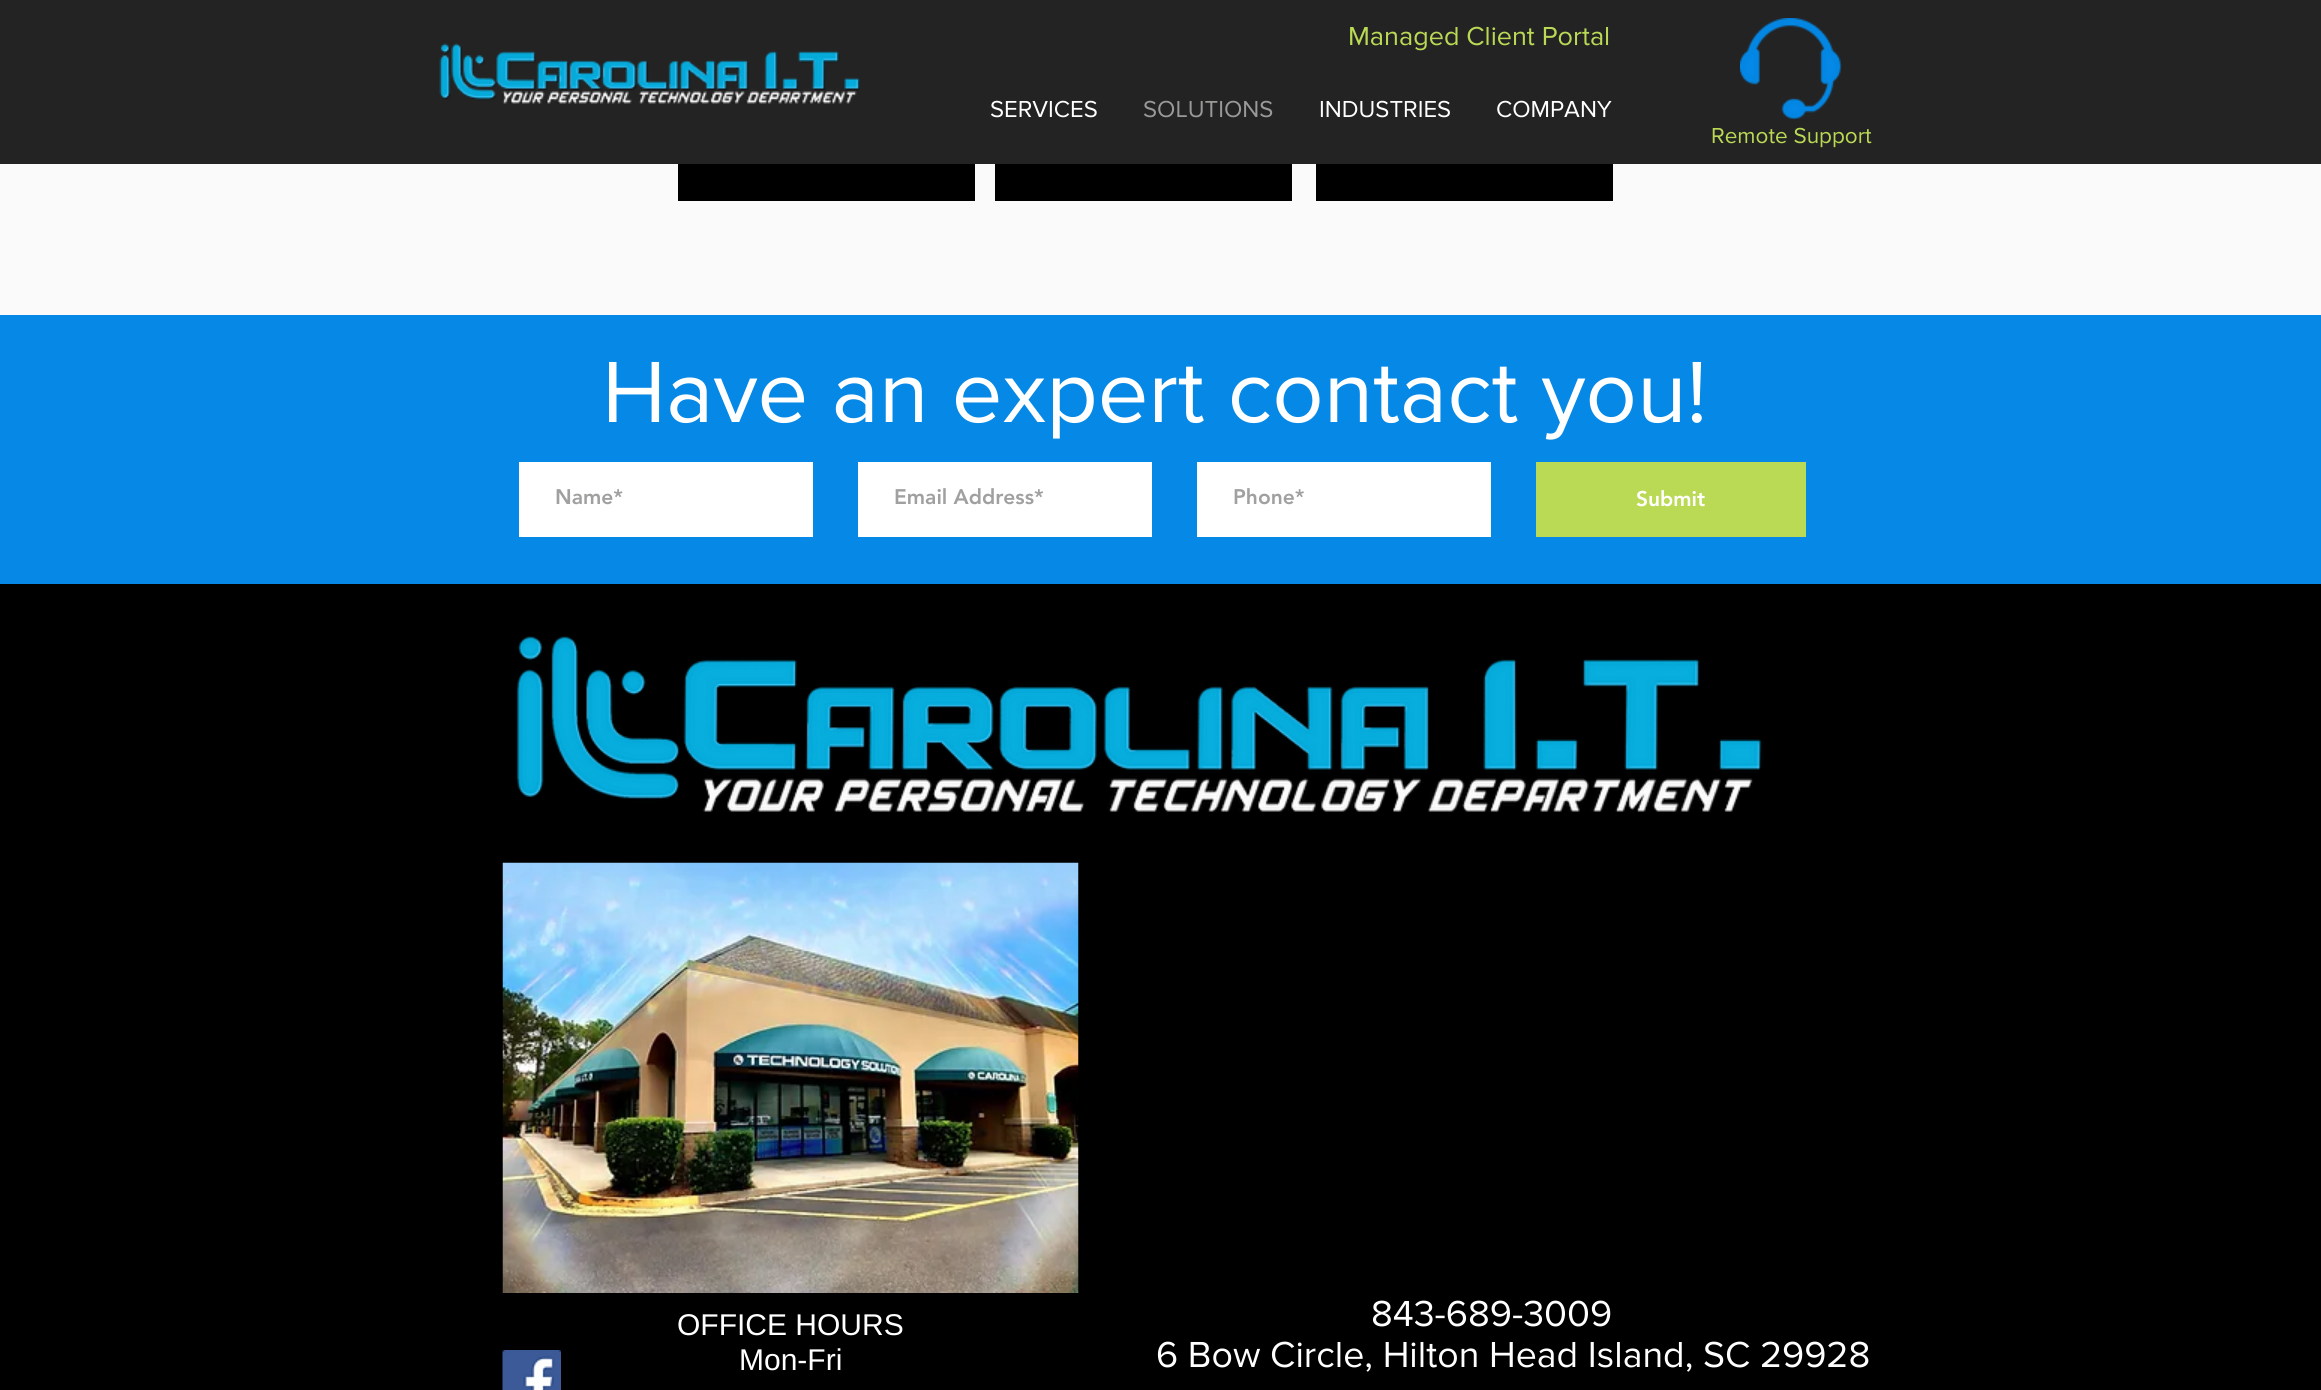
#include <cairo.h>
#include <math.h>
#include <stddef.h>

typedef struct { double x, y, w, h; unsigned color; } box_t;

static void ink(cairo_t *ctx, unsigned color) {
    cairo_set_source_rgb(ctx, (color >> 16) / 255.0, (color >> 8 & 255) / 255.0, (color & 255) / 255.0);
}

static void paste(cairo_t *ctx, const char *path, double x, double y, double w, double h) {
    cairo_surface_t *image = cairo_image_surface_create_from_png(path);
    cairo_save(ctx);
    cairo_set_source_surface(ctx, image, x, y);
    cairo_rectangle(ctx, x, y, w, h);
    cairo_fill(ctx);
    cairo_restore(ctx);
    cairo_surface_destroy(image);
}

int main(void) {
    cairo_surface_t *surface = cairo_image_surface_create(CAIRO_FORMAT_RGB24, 2321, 1390);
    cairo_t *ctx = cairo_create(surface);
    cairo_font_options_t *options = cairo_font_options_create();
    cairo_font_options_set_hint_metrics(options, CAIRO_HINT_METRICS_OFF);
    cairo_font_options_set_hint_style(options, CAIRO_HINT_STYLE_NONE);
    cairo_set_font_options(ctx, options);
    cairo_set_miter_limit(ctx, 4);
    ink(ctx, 0xFAFAFA);
    cairo_paint(ctx);
    ink(ctx, 0x242323);
    cairo_rectangle(ctx, 0, 0, 2321, 164);
    cairo_fill(ctx);
    cairo_select_font_face(ctx, "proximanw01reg", CAIRO_FONT_SLANT_NORMAL, CAIRO_FONT_WEIGHT_NORMAL);
    cairo_set_font_size(ctx, 27);
    ink(ctx, 0xBADA55);
    cairo_move_to(ctx, 1348, 45);
    cairo_show_text(ctx, "Managed Client Portal");
    paste(ctx, "media/1.png", 1740, 18, 102, 102);
    paste(ctx, "media/2.png", 439, 43, 421, 61);
    cairo_set_font_size(ctx, 24);
    ink(ctx, 0xFFFFFF);
    cairo_move_to(ctx, 990, 117);
    cairo_show_text(ctx, "SERVICES");
    ink(ctx, 0x999997);
    cairo_move_to(ctx, 1143, 117);
    cairo_show_text(ctx, "SOLUTIONS");
    ink(ctx, 0xFFFFFF);
    cairo_move_to(ctx, 1319, 117);
    cairo_show_text(ctx, "INDUSTRIES");
    cairo_move_to(ctx, 1496, 117);
    cairo_show_text(ctx, "COMPANY");
    cairo_set_font_size(ctx, 22.5);
    ink(ctx, 0xBADA55);
    cairo_move_to(ctx, 1711, 143);
    cairo_show_text(ctx, "Remote Support");
    {
        static const box_t items[] = {
            {678, 164, 297, 37, 0x000000},
            {995, 164, 297, 37, 0x000000},
            {1316, 164, 297, 37, 0x000000},
            {0, 315, 2321, 269, 0x0588E6},
        };
        for (size_t i = 0; i < sizeof items / sizeof *items; i++) {
            ink(ctx, items[i].color);
            cairo_rectangle(ctx, items[i].x, items[i].y, items[i].w, items[i].h);
            cairo_fill(ctx);
        }
    }
    cairo_set_font_size(ctx, 90);
    ink(ctx, 0xFFFFFF);
    cairo_move_to(ctx, 602, 422);
    cairo_show_text(ctx, "Have an expert contact you!");
    cairo_rectangle(ctx, 519, 462, 294, 75);
    cairo_fill(ctx);
    cairo_select_font_face(ctx, "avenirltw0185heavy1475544 Black", CAIRO_FONT_SLANT_NORMAL, CAIRO_FONT_WEIGHT_NORMAL);
    cairo_set_font_size(ctx, 21);
    ink(ctx, 0xA0A09F);
    cairo_move_to(ctx, 555, 504);
    cairo_show_text(ctx, "Name*");
    ink(ctx, 0xFFFFFF);
    cairo_rectangle(ctx, 858, 462, 294, 75);
    cairo_fill(ctx);
    ink(ctx, 0xA0A09F);
    cairo_move_to(ctx, 894, 504);
    cairo_show_text(ctx, "Email Address*");
    ink(ctx, 0xFFFFFF);
    cairo_rectangle(ctx, 1197, 462, 294, 75);
    cairo_fill(ctx);
    ink(ctx, 0xA0A09F);
    cairo_move_to(ctx, 1233, 504);
    cairo_show_text(ctx, "Phone*");
    ink(ctx, 0xBADA55);
    cairo_rectangle(ctx, 1536, 462, 270, 75);
    cairo_fill(ctx);
    ink(ctx, 0xFFFFFF);
    cairo_move_to(ctx, 1636, 506);
    cairo_show_text(ctx, "Submit");
    ink(ctx, 0x000000);
    cairo_rectangle(ctx, 0, 584, 2321, 806);
    cairo_fill(ctx);
    paste(ctx, "media/3.png", 516, 636, 1248, 177);
    paste(ctx, "media/4.png", 502, 862, 577, 431);
    cairo_select_font_face(ctx, "Liberation Sans", CAIRO_FONT_SLANT_NORMAL, CAIRO_FONT_WEIGHT_NORMAL);
    cairo_set_font_size(ctx, 30);
    ink(ctx, 0xFFFFFF);
    cairo_move_to(ctx, 677, 1335);
    cairo_show_text(ctx, "OFFICE HOURS");
    cairo_move_to(ctx, 739, 1370);
    cairo_show_text(ctx, "Mon-Fri");
    cairo_select_font_face(ctx, "proximanw01reg", CAIRO_FONT_SLANT_NORMAL, CAIRO_FONT_WEIGHT_NORMAL);
    cairo_set_font_size(ctx, 37.5);
    cairo_move_to(ctx, 1371, 1326);
    cairo_show_text(ctx, "843-689-3009");
    paste(ctx, "media/5.png", 502, 1350, 59, 40);
    cairo_move_to(ctx, 1156, 1367);
    cairo_show_text(ctx, "6 Bow Circle, Hilton Head Island, SC 29928");
    cairo_surface_write_to_png(surface, "image.png");
    cairo_font_options_destroy(options);
    cairo_destroy(ctx);
    cairo_surface_destroy(surface);
    return 0;
}
